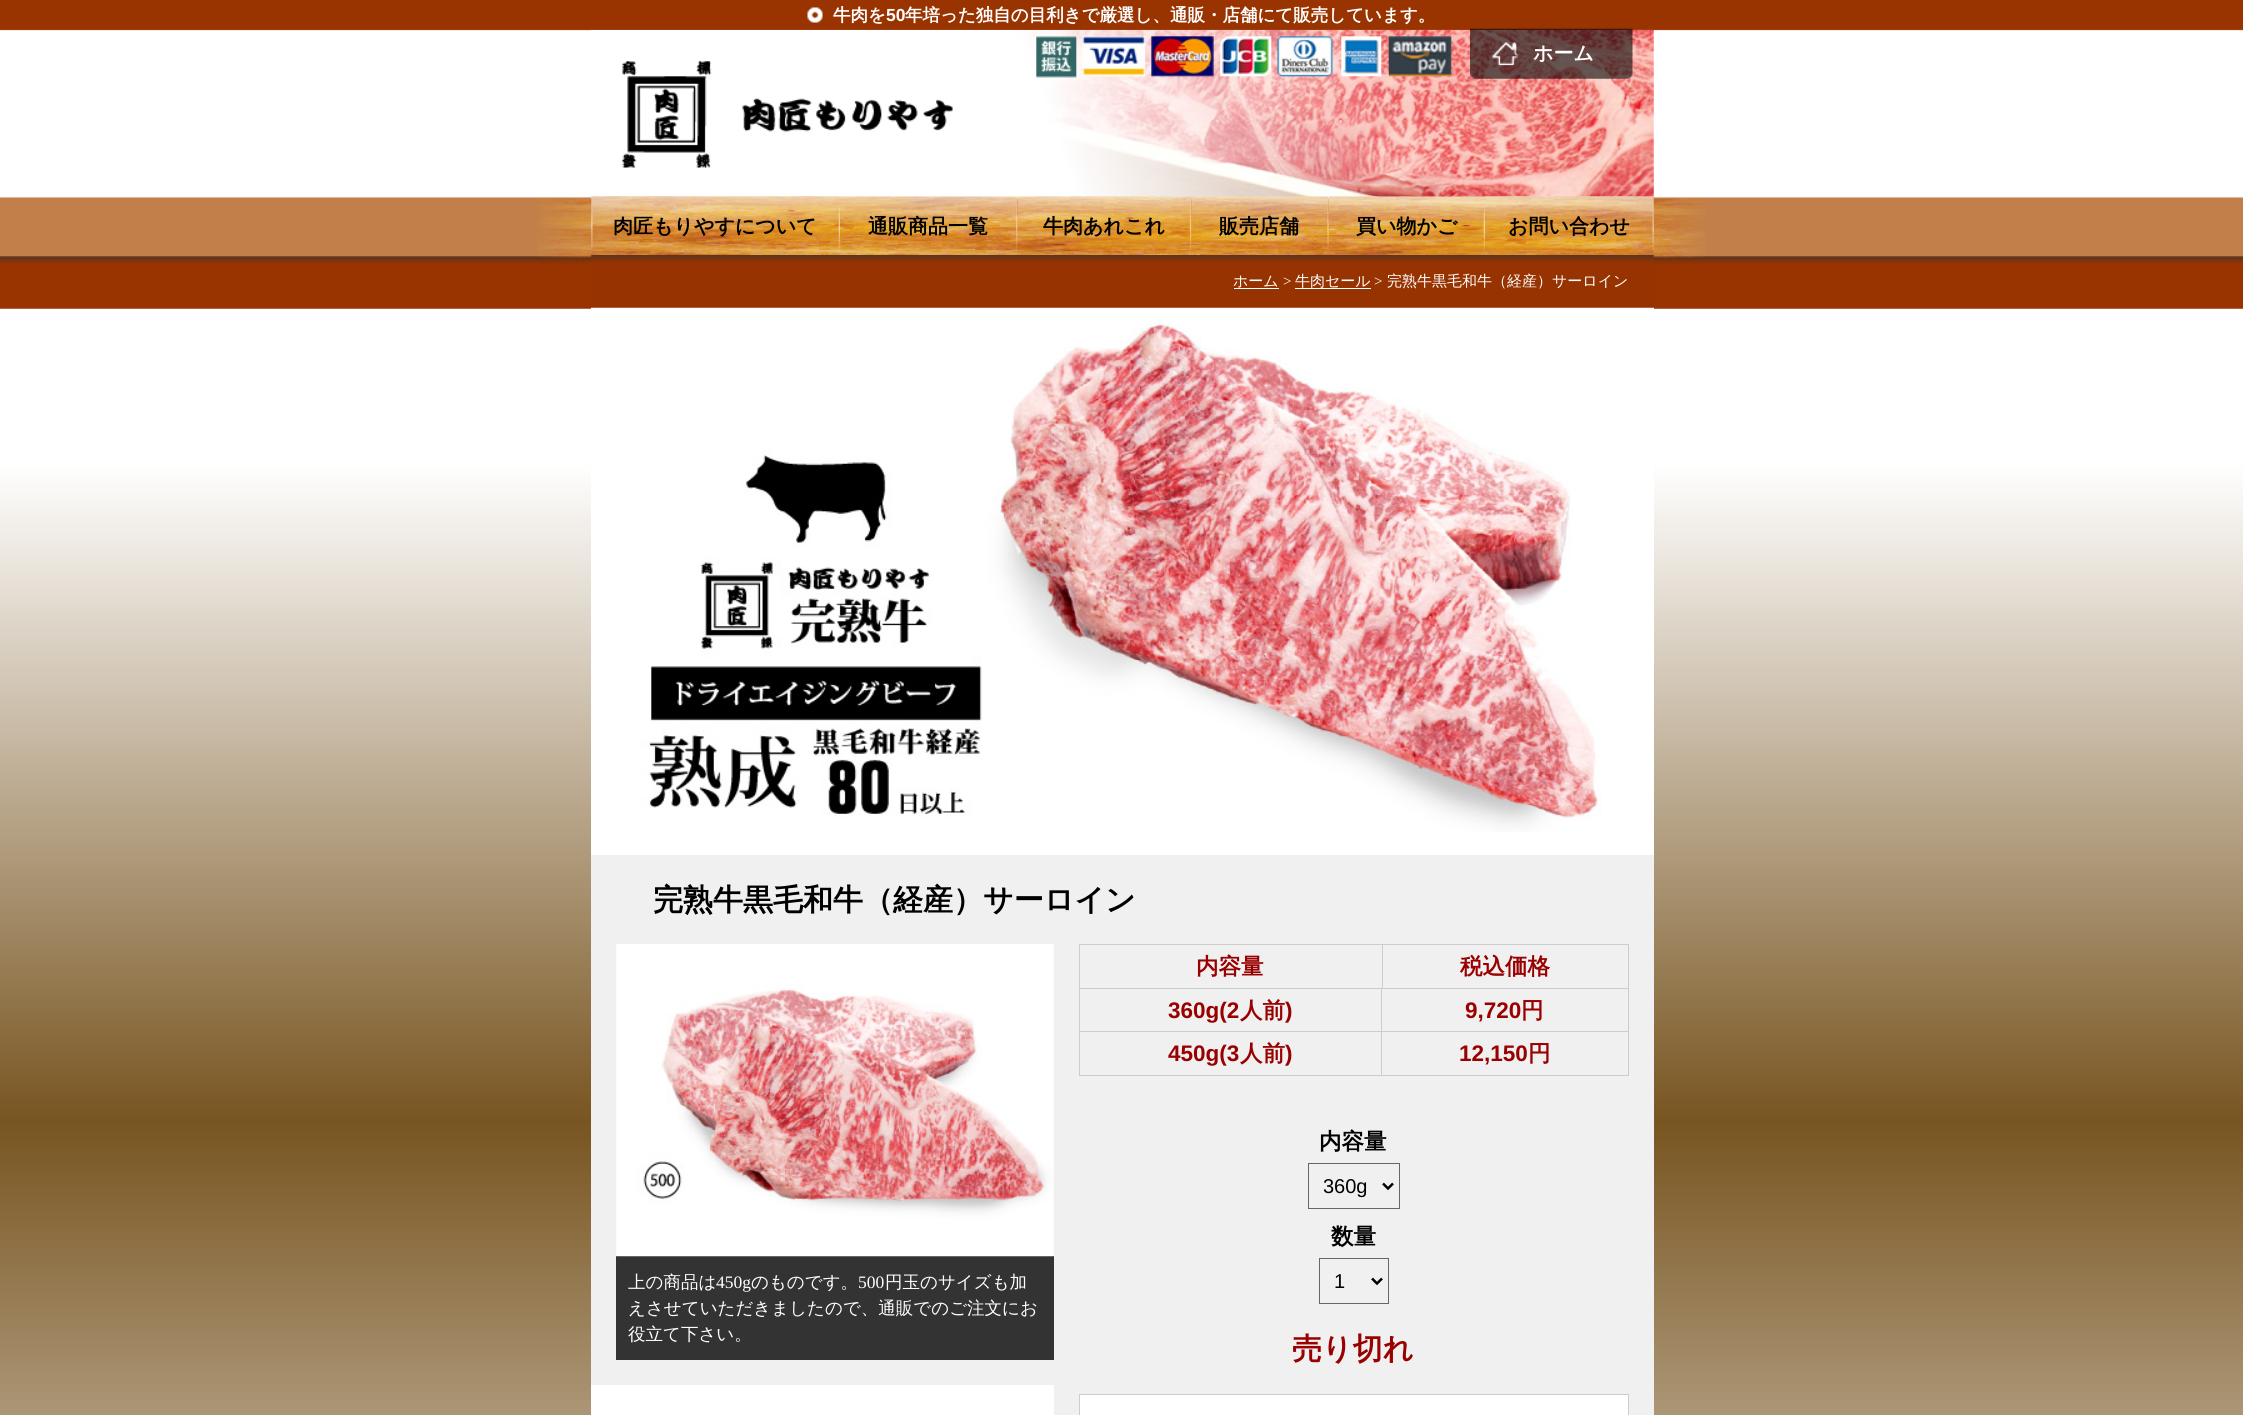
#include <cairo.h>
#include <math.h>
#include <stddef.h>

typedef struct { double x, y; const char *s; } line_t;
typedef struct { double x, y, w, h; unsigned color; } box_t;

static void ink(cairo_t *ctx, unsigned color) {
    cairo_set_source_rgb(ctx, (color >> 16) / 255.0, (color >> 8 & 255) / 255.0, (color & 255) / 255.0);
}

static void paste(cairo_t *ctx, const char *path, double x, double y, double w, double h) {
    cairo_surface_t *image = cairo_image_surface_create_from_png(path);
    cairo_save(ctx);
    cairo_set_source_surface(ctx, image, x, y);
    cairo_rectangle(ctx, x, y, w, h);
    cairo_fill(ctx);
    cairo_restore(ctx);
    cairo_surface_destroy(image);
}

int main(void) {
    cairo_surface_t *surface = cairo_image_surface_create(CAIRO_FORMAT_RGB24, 2243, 1415);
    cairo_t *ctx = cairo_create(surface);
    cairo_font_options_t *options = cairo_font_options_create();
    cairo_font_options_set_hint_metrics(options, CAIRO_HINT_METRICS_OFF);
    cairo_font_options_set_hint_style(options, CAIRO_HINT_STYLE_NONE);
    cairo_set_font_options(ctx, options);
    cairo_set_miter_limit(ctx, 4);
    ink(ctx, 0xFFFFFF);
    cairo_paint(ctx);
    paste(ctx, "media/1.png", 0, 0, 2243, 1415);
    paste(ctx, "media/2.png", 537, 198, 1170, 60);
    paste(ctx, "media/3.png", 591, 30, 1063, 169);
    paste(ctx, "media/4.png", 807, 7, 16, 16);
    cairo_select_font_face(ctx, "WenQuanYi Zen Hei", CAIRO_FONT_SLANT_NORMAL, CAIRO_FONT_WEIGHT_BOLD);
    cairo_set_font_size(ctx, 17.5);
    ink(ctx, 0xFFFFFF);
    cairo_move_to(ctx, 833, 21);
    cairo_show_text(ctx, "牛肉を");
    cairo_select_font_face(ctx, "Liberation Sans", CAIRO_FONT_SLANT_NORMAL, CAIRO_FONT_WEIGHT_BOLD);
    cairo_move_to(ctx, 886, 21);
    cairo_show_text(ctx, "50");
    cairo_select_font_face(ctx, "WenQuanYi Zen Hei", CAIRO_FONT_SLANT_NORMAL, CAIRO_FONT_WEIGHT_BOLD);
    cairo_move_to(ctx, 905, 21);
    cairo_show_text(ctx, "年培った独自の目利きで厳選し、通販・店舗にて販売しています。");
    paste(ctx, "media/5.png", 1470, 28, 163, 51);
    cairo_set_font_size(ctx, 20);
    cairo_move_to(ctx, 1533, 60);
    cairo_show_text(ctx, "ホーム");
    paste(ctx, "media/6.png", 591, 196, 249, 59);
    ink(ctx, 0x000000);
    cairo_move_to(ctx, 613, 233);
    cairo_show_text(ctx, "肉匠もりやすについて");
    paste(ctx, "media/8.png", 1017, 196, 175, 59);
    paste(ctx, "media/7.png", 840, 196, 178, 59);
    cairo_move_to(ctx, 868, 233);
    cairo_show_text(ctx, "通販商品一覧");
    cairo_move_to(ctx, 1043, 233);
    cairo_show_text(ctx, "牛肉あれこれ");
    paste(ctx, "media/9.png", 1191, 196, 138, 59);
    cairo_move_to(ctx, 1219, 233);
    cairo_show_text(ctx, "販売店舗");
    paste(ctx, "media/10.png", 1328, 196, 157, 59);
    cairo_move_to(ctx, 1356, 233);
    cairo_show_text(ctx, "買い物かご");
    paste(ctx, "media/11.png", 1485, 196, 169, 59);
    cairo_move_to(ctx, 1508, 233);
    cairo_show_text(ctx, "お問い合わせ");
    ink(ctx, 0xFFFFFF);
    cairo_rectangle(ctx, 591, 308, 1063, 1107);
    cairo_fill(ctx);
    paste(ctx, "media/14.png", 591, 307, 1063, 525);
    paste(ctx, "media/12.png", 591, 255, 1063, 53);
    cairo_select_font_face(ctx, "WenQuanYi Zen Hei Medium", CAIRO_FONT_SLANT_NORMAL, CAIRO_FONT_WEIGHT_NORMAL);
    cairo_set_font_size(ctx, 15);
    cairo_move_to(ctx, 1233, 286);
    cairo_show_text(ctx, "ホーム");
    cairo_rectangle(ctx, 1234, 288, 45, 1);
    cairo_fill(ctx);
    cairo_select_font_face(ctx, "Liberation Serif", CAIRO_FONT_SLANT_NORMAL, CAIRO_FONT_WEIGHT_NORMAL);
    cairo_move_to(ctx, 1283, 286);
    cairo_show_text(ctx, ">");
    cairo_select_font_face(ctx, "WenQuanYi Zen Hei Medium", CAIRO_FONT_SLANT_NORMAL, CAIRO_FONT_WEIGHT_NORMAL);
    cairo_move_to(ctx, 1295, 286);
    cairo_show_text(ctx, "牛肉セール");
    cairo_rectangle(ctx, 1295, 288, 76, 1);
    cairo_fill(ctx);
    cairo_select_font_face(ctx, "Liberation Serif", CAIRO_FONT_SLANT_NORMAL, CAIRO_FONT_WEIGHT_NORMAL);
    cairo_move_to(ctx, 1374, 286);
    cairo_show_text(ctx, ">");
    cairo_select_font_face(ctx, "WenQuanYi Zen Hei Medium", CAIRO_FONT_SLANT_NORMAL, CAIRO_FONT_WEIGHT_NORMAL);
    cairo_move_to(ctx, 1387, 286);
    cairo_show_text(ctx, "完熟牛黒毛和牛（経産）サーロイン");
    paste(ctx, "media/13.png", 622, 61, 331, 107);
    ink(ctx, 0xF0F0F0);
    cairo_rectangle(ctx, 591, 855, 1063, 64);
    cairo_fill(ctx);
    cairo_select_font_face(ctx, "WenQuanYi Zen Hei", CAIRO_FONT_SLANT_NORMAL, CAIRO_FONT_WEIGHT_BOLD);
    cairo_set_font_size(ctx, 30);
    ink(ctx, 0x000000);
    cairo_move_to(ctx, 653, 910);
    cairo_show_text(ctx, "完熟牛黒毛和牛（経産）サーロイン");
    ink(ctx, 0xF0F0F0);
    cairo_rectangle(ctx, 1054, 919, 600, 450);
    cairo_fill(ctx);
    cairo_rectangle(ctx, 1079.5, 944.5, 303, 44);
    ink(ctx, 0xCCCCCC);
    cairo_set_line_width(ctx, 1);
    cairo_stroke(ctx);
    cairo_set_font_size(ctx, 22.5);
    ink(ctx, 0x990000);
    cairo_move_to(ctx, 1196, 974);
    cairo_show_text(ctx, "内容量");
    {
        static const box_t items[] = {
            {1383, 944, 246, 1, 0xCCCCCC},
            {1628, 944, 1, 132, 0xCCCCCC},
            {1383, 988, 246, 1, 0xCCCCCC},
        };
        for (size_t i = 0; i < sizeof items / sizeof *items; i++) {
            ink(ctx, items[i].color);
            cairo_rectangle(ctx, items[i].x, items[i].y, items[i].w, items[i].h);
            cairo_fill(ctx);
        }
    }
    ink(ctx, 0x990000);
    cairo_move_to(ctx, 1460, 974);
    cairo_show_text(ctx, "税込価格");
    {
        static const box_t items[] = {
            {1381, 989, 1, 87, 0xCCCCCC},
            {1079, 1031, 550, 1, 0xCCCCCC},
            {1079, 989, 1, 44, 0xCCCCCC},
        };
        for (size_t i = 0; i < sizeof items / sizeof *items; i++) {
            ink(ctx, items[i].color);
            cairo_rectangle(ctx, items[i].x, items[i].y, items[i].w, items[i].h);
            cairo_fill(ctx);
        }
    }
    cairo_select_font_face(ctx, "Liberation Sans", CAIRO_FONT_SLANT_NORMAL, CAIRO_FONT_WEIGHT_BOLD);
    ink(ctx, 0x990000);
    cairo_move_to(ctx, 1168, 1018);
    cairo_show_text(ctx, "360g(2");
    cairo_select_font_face(ctx, "WenQuanYi Zen Hei", CAIRO_FONT_SLANT_NORMAL, CAIRO_FONT_WEIGHT_BOLD);
    cairo_move_to(ctx, 1240, 1018);
    cairo_show_text(ctx, "人前");
    cairo_select_font_face(ctx, "Liberation Sans", CAIRO_FONT_SLANT_NORMAL, CAIRO_FONT_WEIGHT_BOLD);
    cairo_move_to(ctx, 1285, 1018);
    cairo_show_text(ctx, ")");
    cairo_move_to(ctx, 1465, 1018);
    cairo_show_text(ctx, "9,720");
    cairo_select_font_face(ctx, "WenQuanYi Zen Hei", CAIRO_FONT_SLANT_NORMAL, CAIRO_FONT_WEIGHT_BOLD);
    cairo_move_to(ctx, 1521, 1018);
    cairo_show_text(ctx, "円");
    ink(ctx, 0xCCCCCC);
    cairo_rectangle(ctx, 1079, 1075, 550, 1);
    cairo_fill(ctx);
    cairo_rectangle(ctx, 1079, 1033, 1, 43);
    cairo_fill(ctx);
    cairo_select_font_face(ctx, "Liberation Sans", CAIRO_FONT_SLANT_NORMAL, CAIRO_FONT_WEIGHT_BOLD);
    ink(ctx, 0x990000);
    cairo_move_to(ctx, 1168, 1061);
    cairo_show_text(ctx, "450g(3");
    cairo_select_font_face(ctx, "WenQuanYi Zen Hei", CAIRO_FONT_SLANT_NORMAL, CAIRO_FONT_WEIGHT_BOLD);
    cairo_move_to(ctx, 1240, 1061);
    cairo_show_text(ctx, "人前");
    cairo_select_font_face(ctx, "Liberation Sans", CAIRO_FONT_SLANT_NORMAL, CAIRO_FONT_WEIGHT_BOLD);
    cairo_move_to(ctx, 1285, 1061);
    cairo_show_text(ctx, ")");
    cairo_move_to(ctx, 1459, 1061);
    cairo_show_text(ctx, "12,150");
    cairo_select_font_face(ctx, "WenQuanYi Zen Hei", CAIRO_FONT_SLANT_NORMAL, CAIRO_FONT_WEIGHT_BOLD);
    cairo_move_to(ctx, 1528, 1061);
    cairo_show_text(ctx, "円");
    ink(ctx, 0xF0F0F0);
    cairo_rectangle(ctx, 591, 919, 463, 466);
    cairo_fill(ctx);
    ink(ctx, 0x333333);
    cairo_rectangle(ctx, 616, 1256, 438, 104);
    cairo_fill(ctx);
    paste(ctx, "media/15.png", 616, 944, 438, 313);
    cairo_select_font_face(ctx, "WenQuanYi Zen Hei Medium", CAIRO_FONT_SLANT_NORMAL, CAIRO_FONT_WEIGHT_NORMAL);
    cairo_set_font_size(ctx, 17.5);
    ink(ctx, 0xFFFFFF);
    cairo_move_to(ctx, 628, 1288);
    cairo_show_text(ctx, "上の商品は");
    cairo_select_font_face(ctx, "Liberation Serif", CAIRO_FONT_SLANT_NORMAL, CAIRO_FONT_WEIGHT_NORMAL);
    cairo_move_to(ctx, 716, 1288);
    cairo_show_text(ctx, "450g");
    cairo_select_font_face(ctx, "WenQuanYi Zen Hei Medium", CAIRO_FONT_SLANT_NORMAL, CAIRO_FONT_WEIGHT_NORMAL);
    cairo_move_to(ctx, 751, 1288);
    cairo_show_text(ctx, "のものです。");
    cairo_select_font_face(ctx, "Liberation Serif", CAIRO_FONT_SLANT_NORMAL, CAIRO_FONT_WEIGHT_NORMAL);
    cairo_move_to(ctx, 858, 1288);
    cairo_show_text(ctx, "500");
    cairo_select_font_face(ctx, "WenQuanYi Zen Hei Medium", CAIRO_FONT_SLANT_NORMAL, CAIRO_FONT_WEIGHT_NORMAL);
    {
        static const line_t items[] = {
            {885, 1288, "円玉のサイズも加"},
            {628, 1314, "えさせていただきましたので、通販でのご注文にお"},
            {628, 1340, "役立て下さい。"},
        };
        for (size_t i = 0; i < sizeof items / sizeof *items; i++) {
            cairo_move_to(ctx, items[i].x, items[i].y);
            cairo_show_text(ctx, items[i].s);
        }
    }
    cairo_select_font_face(ctx, "WenQuanYi Zen Hei", CAIRO_FONT_SLANT_NORMAL, CAIRO_FONT_WEIGHT_BOLD);
    cairo_set_font_size(ctx, 22.5);
    ink(ctx, 0x000000);
    cairo_move_to(ctx, 1319, 1149);
    cairo_show_text(ctx, "内容量");
    cairo_rectangle(ctx, 1308.5, 1163.5, 91, 45);
    ink(ctx, 0x666666);
    cairo_stroke(ctx);
    cairo_new_path(ctx);
    cairo_move_to(ctx, 1383, 1183.5);
    cairo_line_to(ctx, 1388, 1188.5);
    cairo_line_to(ctx, 1393, 1183.5);
    ink(ctx, 0x000000);
    cairo_set_line_width(ctx, 2.5);
    cairo_stroke(ctx);
    cairo_select_font_face(ctx, "Liberation Sans", CAIRO_FONT_SLANT_NORMAL, CAIRO_FONT_WEIGHT_NORMAL);
    cairo_set_font_size(ctx, 20);
    cairo_move_to(ctx, 1323, 1193);
    cairo_show_text(ctx, "360g");
    cairo_select_font_face(ctx, "WenQuanYi Zen Hei", CAIRO_FONT_SLANT_NORMAL, CAIRO_FONT_WEIGHT_BOLD);
    cairo_set_font_size(ctx, 22.5);
    cairo_move_to(ctx, 1331, 1244);
    cairo_show_text(ctx, "数量");
    cairo_rectangle(ctx, 1319.5, 1258.5, 69, 45);
    ink(ctx, 0x666666);
    cairo_set_line_width(ctx, 1);
    cairo_stroke(ctx);
    cairo_new_path(ctx);
    cairo_move_to(ctx, 1372, 1278.5);
    cairo_line_to(ctx, 1377, 1283.5);
    cairo_line_to(ctx, 1382, 1278.5);
    ink(ctx, 0x000000);
    cairo_set_line_width(ctx, 2.5);
    cairo_stroke(ctx);
    cairo_select_font_face(ctx, "Liberation Sans", CAIRO_FONT_SLANT_NORMAL, CAIRO_FONT_WEIGHT_NORMAL);
    cairo_set_font_size(ctx, 20);
    cairo_move_to(ctx, 1334, 1288);
    cairo_show_text(ctx, "1");
    cairo_select_font_face(ctx, "WenQuanYi Zen Hei", CAIRO_FONT_SLANT_NORMAL, CAIRO_FONT_WEIGHT_BOLD);
    cairo_set_font_size(ctx, 30);
    ink(ctx, 0x990000);
    cairo_move_to(ctx, 1292, 1359);
    cairo_show_text(ctx, "売り切れ");
    {
        static const box_t items[] = {
            {1079, 1394, 550, 21, 0xCCCCCC},
            {1079, 1369, 550, 25, 0xF0F0F0},
            {1629, 1369, 25, 46, 0xF0F0F0},
            {1054, 1369, 25, 46, 0xF0F0F0},
            {1080, 1395, 548, 20, 0xFFFFFF},
        };
        for (size_t i = 0; i < sizeof items / sizeof *items; i++) {
            ink(ctx, items[i].color);
            cairo_rectangle(ctx, items[i].x, items[i].y, items[i].w, items[i].h);
            cairo_fill(ctx);
        }
    }
    cairo_surface_write_to_png(surface, "image.png");
    cairo_font_options_destroy(options);
    cairo_destroy(ctx);
    cairo_surface_destroy(surface);
    return 0;
}
